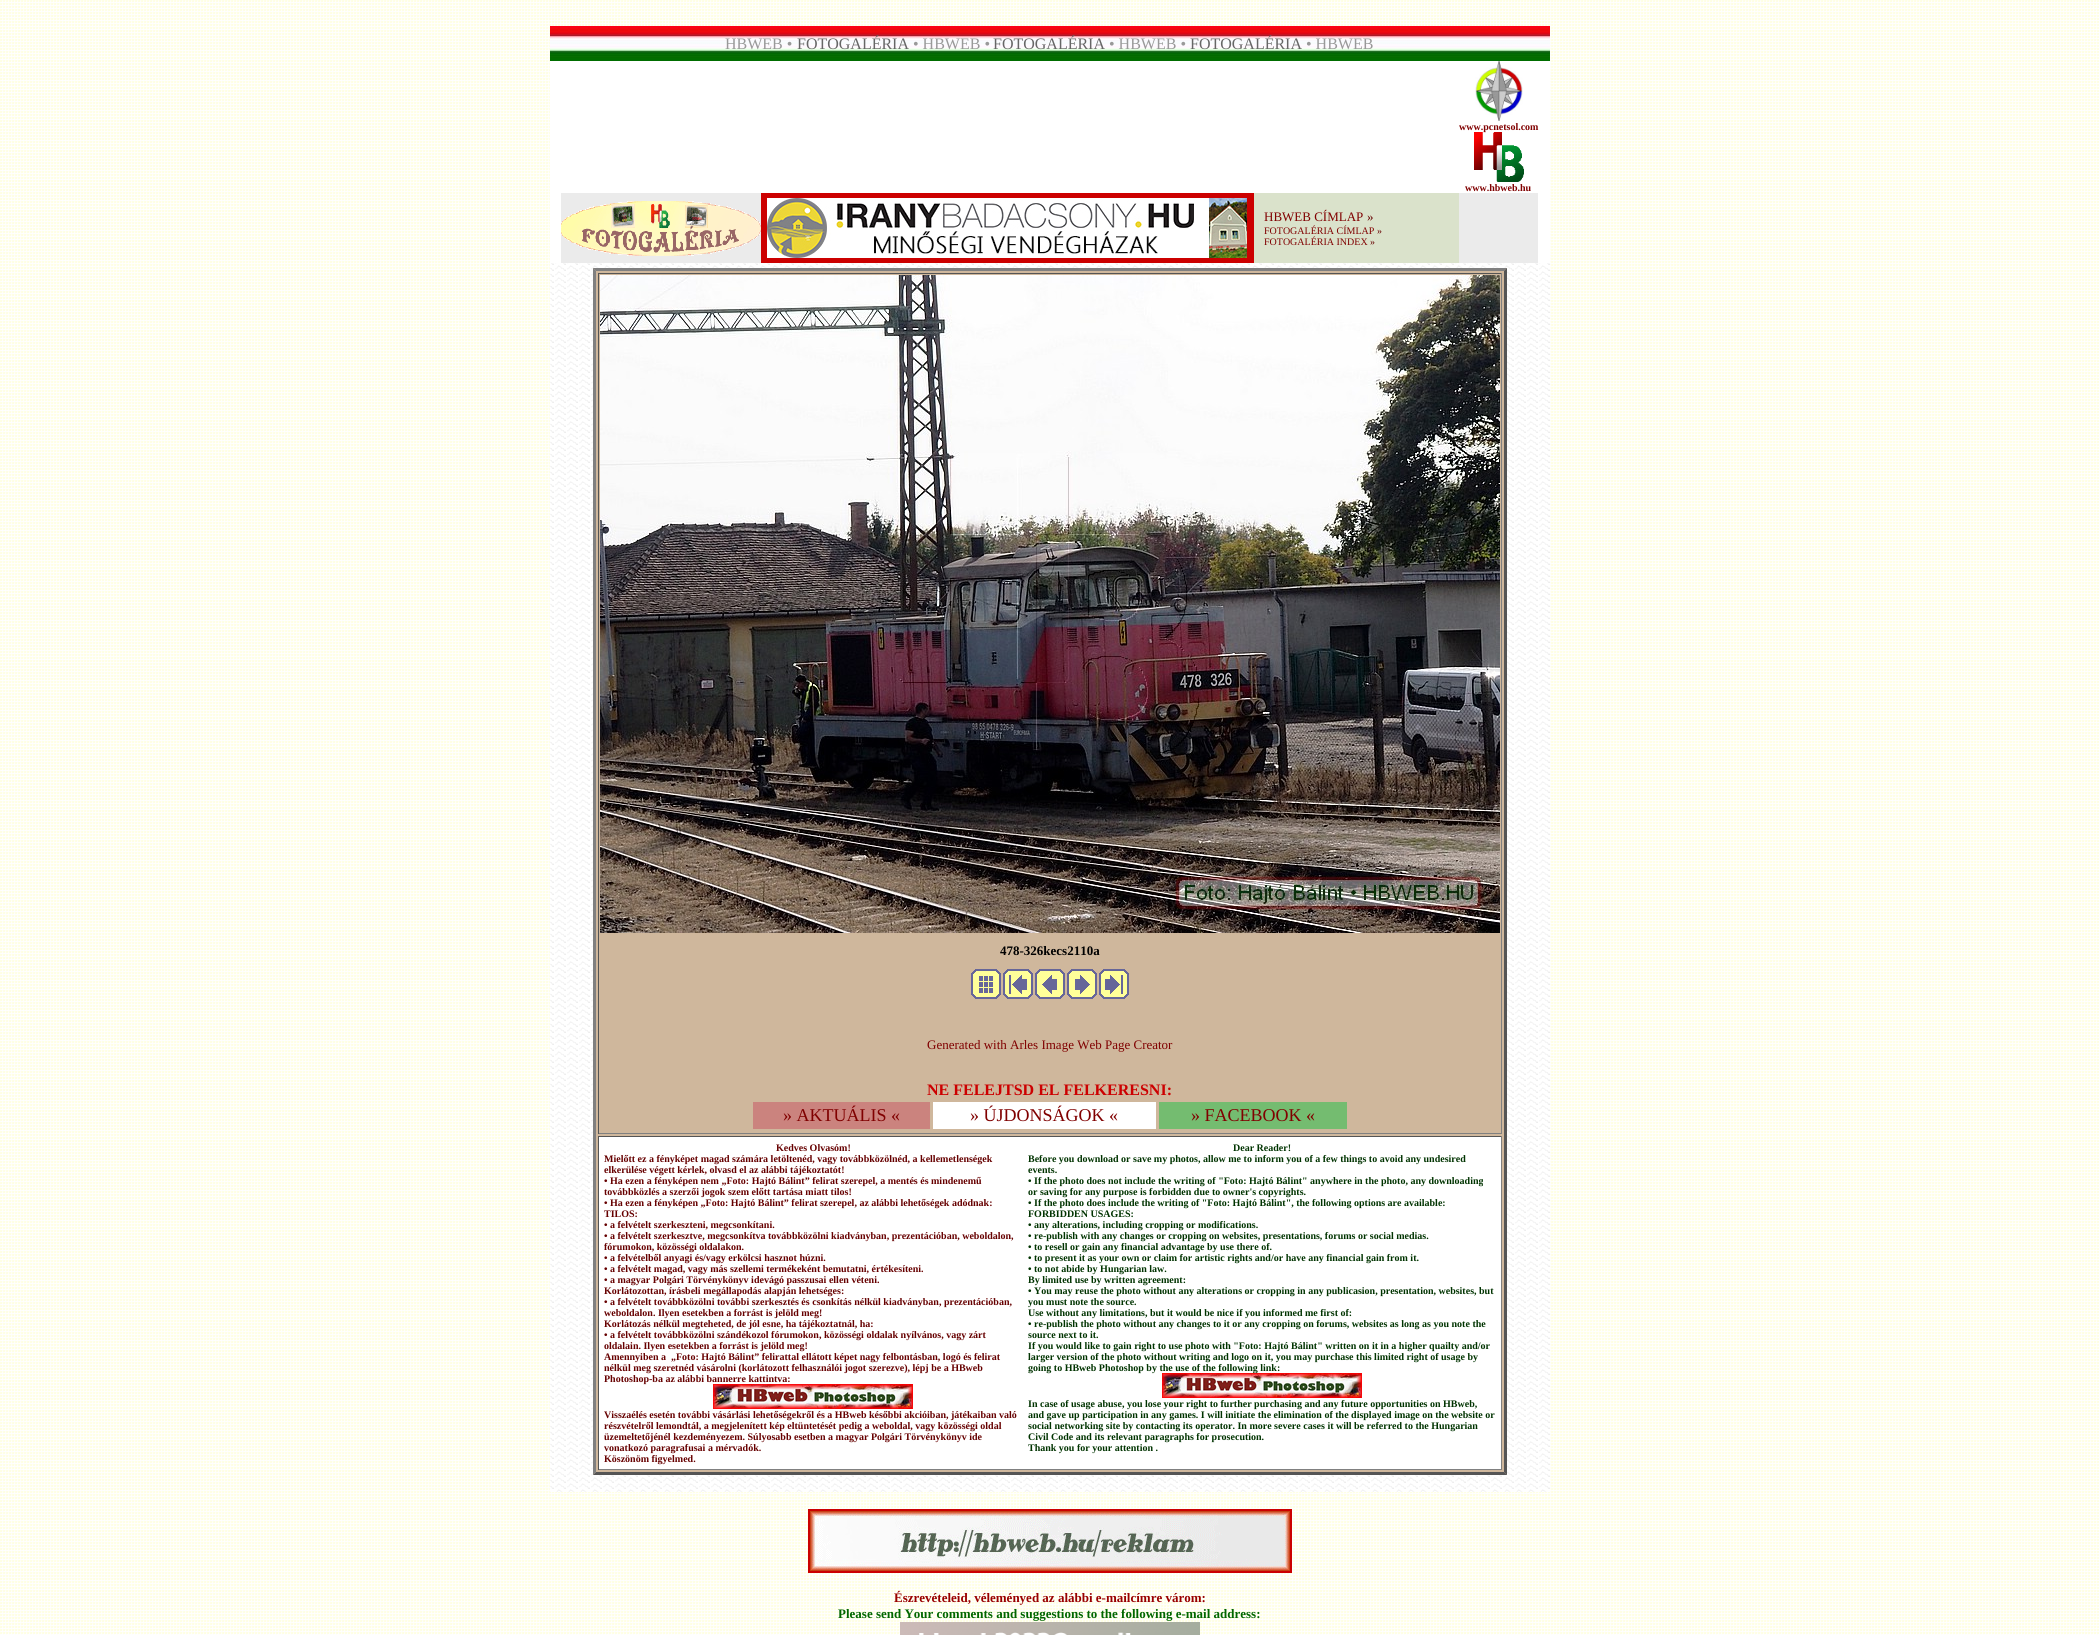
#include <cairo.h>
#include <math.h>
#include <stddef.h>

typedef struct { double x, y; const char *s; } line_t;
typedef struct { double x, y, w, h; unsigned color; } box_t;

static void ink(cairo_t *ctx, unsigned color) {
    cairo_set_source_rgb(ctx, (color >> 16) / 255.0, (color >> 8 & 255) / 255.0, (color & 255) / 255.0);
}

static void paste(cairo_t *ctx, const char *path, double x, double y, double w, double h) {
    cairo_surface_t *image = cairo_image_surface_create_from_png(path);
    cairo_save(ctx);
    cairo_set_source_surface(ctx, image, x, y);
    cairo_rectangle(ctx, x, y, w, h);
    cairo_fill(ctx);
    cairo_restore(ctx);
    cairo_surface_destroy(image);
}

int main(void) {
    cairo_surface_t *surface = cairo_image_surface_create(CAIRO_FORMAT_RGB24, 2099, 1635);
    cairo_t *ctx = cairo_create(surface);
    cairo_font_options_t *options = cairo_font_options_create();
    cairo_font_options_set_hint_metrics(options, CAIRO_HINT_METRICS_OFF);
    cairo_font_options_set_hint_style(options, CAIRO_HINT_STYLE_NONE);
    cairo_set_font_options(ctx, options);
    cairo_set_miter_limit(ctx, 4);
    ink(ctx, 0xFFFFFF);
    cairo_paint(ctx);
    paste(ctx, "media/1.png", 0, 0, 2099, 1635);
    paste(ctx, "media/2.png", 550, 26, 1000, 35);
    cairo_select_font_face(ctx, "Liberation Serif", CAIRO_FONT_SLANT_NORMAL, CAIRO_FONT_WEIGHT_NORMAL);
    cairo_set_font_size(ctx, 16);
    ink(ctx, 0x999999);
    cairo_move_to(ctx, 725, 49);
    cairo_show_text(ctx, "HBWEB •");
    ink(ctx, 0x666666);
    cairo_move_to(ctx, 797, 49);
    cairo_show_text(ctx, "FOTOGALÉRIA");
    ink(ctx, 0x999999);
    cairo_move_to(ctx, 913, 49);
    cairo_show_text(ctx, "• HBWEB •");
    ink(ctx, 0x666666);
    cairo_move_to(ctx, 993, 49);
    cairo_show_text(ctx, "FOTOGALÉRIA");
    ink(ctx, 0x999999);
    cairo_move_to(ctx, 1109, 49);
    cairo_show_text(ctx, "• HBWEB •");
    ink(ctx, 0x666666);
    cairo_move_to(ctx, 1190, 49);
    cairo_show_text(ctx, "FOTOGALÉRIA");
    ink(ctx, 0x999999);
    cairo_move_to(ctx, 1306, 49);
    cairo_show_text(ctx, "• HBWEB");
    paste(ctx, "media/3.png", 550, 263, 1000, 1229);
    ink(ctx, 0xFFFFFF);
    cairo_rectangle(ctx, 550, 61, 1000, 202);
    cairo_fill(ctx);
    paste(ctx, "media/4.png", 1475, 61, 48, 60);
    cairo_select_font_face(ctx, "Liberation Serif", CAIRO_FONT_SLANT_NORMAL, CAIRO_FONT_WEIGHT_BOLD);
    cairo_set_font_size(ctx, 10);
    ink(ctx, 0x800000);
    cairo_move_to(ctx, 1459, 130);
    cairo_show_text(ctx, "www.pcnetsol.com");
    paste(ctx, "media/5.png", 1474, 132, 50, 50);
    cairo_move_to(ctx, 1465, 191);
    cairo_show_text(ctx, "www.hbweb.hu");
    ink(ctx, 0xEBEBEB);
    cairo_rectangle(ctx, 561, 193, 200, 70);
    cairo_fill(ctx);
    paste(ctx, "media/6.png", 561, 201, 200, 55);
    ink(ctx, 0xDAE2CB);
    cairo_rectangle(ctx, 1254, 193, 205, 70);
    cairo_fill(ctx);
    ink(ctx, 0xCC0000);
    cairo_rectangle(ctx, 761, 193, 493, 70);
    cairo_fill(ctx);
    paste(ctx, "media/7.png", 767, 198, 480, 60);
    cairo_select_font_face(ctx, "Liberation Serif", CAIRO_FONT_SLANT_NORMAL, CAIRO_FONT_WEIGHT_NORMAL);
    cairo_set_font_size(ctx, 13);
    ink(ctx, 0x800000);
    cairo_move_to(ctx, 1264, 221);
    cairo_show_text(ctx, "HBWEB CÍMLAP");
    ink(ctx, 0x660000);
    cairo_move_to(ctx, 1367, 221);
    cairo_show_text(ctx, "»");
    cairo_set_font_size(ctx, 10);
    ink(ctx, 0x800000);
    cairo_move_to(ctx, 1264, 234);
    cairo_show_text(ctx, "FOTOGALÉRIA CÍMLAP");
    ink(ctx, 0x660000);
    cairo_move_to(ctx, 1377, 234);
    cairo_show_text(ctx, "»");
    ink(ctx, 0x800000);
    cairo_move_to(ctx, 1264, 245);
    cairo_show_text(ctx, "FOTOGALÉRIA INDEX");
    ink(ctx, 0x660000);
    cairo_move_to(ctx, 1370, 245);
    cairo_show_text(ctx, "»");
    {
        static const box_t items[] = {
            {1459, 193, 79, 70, 0xEBEBEB},
            {1045, 264, 1, 1, 0xF2F2F2},
            {593, 268, 914, 1207, 0xCFB79C},
        };
        for (size_t i = 0; i < sizeof items / sizeof *items; i++) {
            ink(ctx, items[i].color);
            cairo_rectangle(ctx, items[i].x, items[i].y, items[i].w, items[i].h);
            cairo_fill(ctx);
        }
    }
    ink(ctx, 0x808080);
    cairo_new_path(ctx);
    cairo_move_to(ctx, 593, 268);
    cairo_line_to(ctx, 1507, 268);
    cairo_line_to(ctx, 1504, 271);
    cairo_line_to(ctx, 596, 271);
    cairo_close_path(ctx);
    cairo_fill(ctx);
    ink(ctx, 0x555555);
    cairo_new_path(ctx);
    cairo_move_to(ctx, 1507, 268);
    cairo_line_to(ctx, 1507, 1475);
    cairo_line_to(ctx, 1504, 1472);
    cairo_line_to(ctx, 1504, 271);
    cairo_close_path(ctx);
    cairo_fill(ctx);
    cairo_new_path(ctx);
    cairo_move_to(ctx, 1507, 1475);
    cairo_line_to(ctx, 593, 1475);
    cairo_line_to(ctx, 596, 1472);
    cairo_line_to(ctx, 1504, 1472);
    cairo_close_path(ctx);
    cairo_fill(ctx);
    ink(ctx, 0x808080);
    cairo_new_path(ctx);
    cairo_move_to(ctx, 593, 1475);
    cairo_line_to(ctx, 593, 268);
    cairo_line_to(ctx, 596, 271);
    cairo_line_to(ctx, 596, 1472);
    cairo_close_path(ctx);
    cairo_fill(ctx);
    {
        static const box_t items[] = {
            {598, 273, 904, 1, 0x555555},
            {1501, 273, 1, 861, 0x808080},
            {598, 1133, 904, 1, 0x808080},
            {598, 273, 1, 861, 0x555555},
        };
        for (size_t i = 0; i < sizeof items / sizeof *items; i++) {
            ink(ctx, items[i].color);
            cairo_rectangle(ctx, items[i].x, items[i].y, items[i].w, items[i].h);
            cairo_fill(ctx);
        }
    }
    paste(ctx, "media/8.png", 600, 275, 900, 658);
    cairo_select_font_face(ctx, "Liberation Serif", CAIRO_FONT_SLANT_NORMAL, CAIRO_FONT_WEIGHT_BOLD);
    cairo_set_font_size(ctx, 13);
    ink(ctx, 0x000000);
    cairo_move_to(ctx, 1000, 955);
    cairo_show_text(ctx, "478-326kecs2110a");
    paste(ctx, "media/9.png", 971, 969, 30, 30);
    paste(ctx, "media/10.png", 1003, 969, 30, 30);
    paste(ctx, "media/11.png", 1035, 969, 30, 30);
    paste(ctx, "media/12.png", 1067, 969, 30, 30);
    paste(ctx, "media/13.png", 1099, 969, 30, 30);
    cairo_select_font_face(ctx, "Liberation Serif", CAIRO_FONT_SLANT_NORMAL, CAIRO_FONT_WEIGHT_NORMAL);
    ink(ctx, 0x800000);
    cairo_move_to(ctx, 927, 1049);
    cairo_show_text(ctx, "Generated with Arles Image Web Page Creator");
    cairo_select_font_face(ctx, "Liberation Serif", CAIRO_FONT_SLANT_NORMAL, CAIRO_FONT_WEIGHT_BOLD);
    cairo_set_font_size(ctx, 16);
    ink(ctx, 0xCC0000);
    cairo_move_to(ctx, 927, 1095);
    cairo_show_text(ctx, "NE FELEJTSD EL FELKERESNI:");
    ink(ctx, 0xCB837E);
    cairo_rectangle(ctx, 753, 1102, 177, 27);
    cairo_fill(ctx);
    cairo_select_font_face(ctx, "Liberation Serif", CAIRO_FONT_SLANT_NORMAL, CAIRO_FONT_WEIGHT_NORMAL);
    cairo_set_font_size(ctx, 18);
    ink(ctx, 0x800000);
    cairo_move_to(ctx, 783, 1121);
    cairo_show_text(ctx, "» AKTUÁLIS «");
    ink(ctx, 0xFFFFFF);
    cairo_rectangle(ctx, 933, 1102, 223, 27);
    cairo_fill(ctx);
    ink(ctx, 0x800000);
    cairo_move_to(ctx, 970, 1121);
    cairo_show_text(ctx, "» ÚJDONSÁGOK «");
    ink(ctx, 0x74BC70);
    cairo_rectangle(ctx, 1159, 1102, 188, 27);
    cairo_fill(ctx);
    ink(ctx, 0x800000);
    cairo_move_to(ctx, 1191, 1121);
    cairo_show_text(ctx, "» FACEBOOK «");
    {
        static const box_t items[] = {
            {599, 1137, 902, 332, 0xFFFFFF},
            {598, 1136, 904, 1, 0x555555},
            {1501, 1136, 1, 334, 0x808080},
            {598, 1469, 904, 1, 0x808080},
            {598, 1136, 1, 334, 0x555555},
        };
        for (size_t i = 0; i < sizeof items / sizeof *items; i++) {
            ink(ctx, items[i].color);
            cairo_rectangle(ctx, items[i].x, items[i].y, items[i].w, items[i].h);
            cairo_fill(ctx);
        }
    }
    cairo_select_font_face(ctx, "Liberation Serif", CAIRO_FONT_SLANT_NORMAL, CAIRO_FONT_WEIGHT_BOLD);
    cairo_set_font_size(ctx, 10);
    ink(ctx, 0x660000);
    {
        static const line_t items[] = {
            {776, 1151, "Kedves Olvasóm!"},
            {604, 1162, "Mielőtt ez a fényképet magad számára letöltenéd, vagy továbbközölnéd, a kellemetlenségek"},
            {604, 1173, "elkerülése végett kérlek, olvasd el az alábbi tájékoztatót!"},
            {604, 1184, "• Ha ezen a fényképen nem „Foto: Hajtó Bálint” felirat szerepel, a mentés és mindenemű"},
            {604, 1195, "továbbközlés a szerzői jogok szem előtt tartása miatt tilos!"},
            {604, 1206, "• Ha ezen a fényképen „Foto: Hajtó Bálint” felirat szerepel, az alábbi lehetőségek adódnak:"},
            {604, 1217, "TILOS:"},
            {604, 1228, "• a felvételt szerkeszteni, megcsonkítani."},
            {604, 1239, "• a felvételt szerkesztve, megcsonkítva továbbközölni kiadványban, prezentációban, weboldalon,"},
            {604, 1250, "fórumokon, közösségi oldalakon."},
            {604, 1261, "• a felvételből anyagi és/vagy erkölcsi hasznot húzni."},
            {604, 1272, "• a felvételt magad, vagy más szellemi termékeként bemutatni, értékesíteni."},
            {604, 1283, "• a magyar Polgári Törvénykönyv idevágó passzusai ellen véteni."},
            {604, 1294, "Korlátozottan, írásbeli megállapodás alapján lehetséges:"},
            {604, 1305, "• a felvételt továbbközölni további szerkesztés és csonkítás nélkül kiadványban, prezentációban,"},
            {604, 1316, "weboldalon. Ilyen esetekben a forrást is jelöld meg!"},
            {604, 1327, "Korlátozás nélkül megteheted, de jól esne, ha tájékoztatnál, ha:"},
            {604, 1338, "• a felvételt továbbközölni szándékozol fórumokon, közösségi oldalak nyílvános, vagy zárt"},
            {604, 1349, "oldalain. Ilyen esetekben a forrást is jelöld meg!"},
            {604, 1360, "Amennyiben a  „Foto: Hajtó Bálint” felirattal ellátott képet nagy felbontásban, logó és felirat"},
            {604, 1371, "nélkül meg szeretnéd vásárolni (korlátozott felhasználói jogot szerezve), lépj be a HBweb"},
            {604, 1382, "Photoshop-ba az alábbi bannerre kattintva:"},
        };
        for (size_t i = 0; i < sizeof items / sizeof *items; i++) {
            cairo_move_to(ctx, items[i].x, items[i].y);
            cairo_show_text(ctx, items[i].s);
        }
    }
    paste(ctx, "media/14.png", 713, 1384, 200, 25);
    {
        static const line_t items[] = {
            {604, 1418, "Visszaélés esetén további vásárlási lehetőségekről és a HBweb későbbi akcióiban, játékaiban való"},
            {604, 1429, "részvételről lemondtál, a megjelenített kép eltüntetését pedig a weboldal, vagy közösségi oldal"},
            {604, 1440, "üzemeltetőjénél kezdeményezem. Súlyosabb esetben a magyar Polgári Törvénykönyv ide"},
            {604, 1451, "vonatkozó paragrafusai a mérvadók."},
            {604, 1462, "Köszönöm figyelmed."},
        };
        for (size_t i = 0; i < sizeof items / sizeof *items; i++) {
            cairo_move_to(ctx, items[i].x, items[i].y);
            cairo_show_text(ctx, items[i].s);
        }
    }
    ink(ctx, 0x003300);
    {
        static const line_t items[] = {
            {1233, 1151, "Dear Reader!"},
            {1028, 1162, "Before you download or save my photos, allow me to inform you of a few things to avoid any undesired"},
            {1028, 1173, "events."},
            {1028, 1184, "• If the photo does not include the writing of \"Foto: Hajtó Bálint\" anywhere in the photo, any downloading"},
            {1028, 1195, "or saving for any purpose is forbidden due to owner's copyrights."},
            {1028, 1206, "• If the photo does include the writing of \"Foto: Hajtó Bálint\", the following options are available:"},
            {1028, 1217, "FORBIDDEN USAGES:"},
            {1028, 1228, "• any alterations, including cropping or modifications."},
            {1028, 1239, "• re-publish with any changes or cropping on websites, presentations, forums or social medias."},
            {1028, 1250, "• to resell or gain any financial advantage by use there of."},
            {1028, 1261, "• to present it as your own or claim for artistic rights and/or have any financial gain from it."},
            {1028, 1272, "• to not abide by Hungarian law."},
            {1028, 1283, "By limited use by written agreement:"},
            {1028, 1294, "• You may reuse the photo without any alterations or cropping in any publicasion, presentation, websites, but"},
            {1028, 1305, "you must note the source."},
            {1028, 1316, "Use without any limitations, but it would be nice if you informed me first of:"},
            {1028, 1327, "• re-publish the photo without any changes to it or any cropping on forums, websites as long as you note the"},
            {1028, 1338, "source next to it."},
            {1028, 1349, "If you would like to gain right to use photo with \"Foto: Hajtó Bálint\" written on it in a higher quailty and/or"},
            {1028, 1360, "larger version of the photo without writing and logo on it, you may purchase this limited right of usage by"},
            {1028, 1371, "going to HBweb Photoshop by the use of the following link:"},
        };
        for (size_t i = 0; i < sizeof items / sizeof *items; i++) {
            cairo_move_to(ctx, items[i].x, items[i].y);
            cairo_show_text(ctx, items[i].s);
        }
    }
    paste(ctx, "media/14.png", 1162, 1373, 200, 25);
    {
        static const line_t items[] = {
            {1028, 1407, "In case of usage abuse, you lose your right to further purchasing and any future opportunities on HBweb,"},
            {1028, 1418, "and gave up participation in any games. I will initiate the elimination of the displayed image on the website or"},
            {1028, 1429, "social networking site by contacting its operator. In more severe cases it will be referred to the Hungarian"},
            {1028, 1440, "Civil Code and its relevant paragraphs for prosecution."},
            {1028, 1451, "Thank you for your attention ."},
        };
        for (size_t i = 0; i < sizeof items / sizeof *items; i++) {
            cairo_move_to(ctx, items[i].x, items[i].y);
            cairo_show_text(ctx, items[i].s);
        }
    }
    paste(ctx, "media/15.png", 1031, 1481, 8, 8);
    paste(ctx, "media/16.png", 1062, 1479, 6, 8);
    {
        static const box_t items[] = {
            {1033, 1500, 1, 1, 0xFFFFFF},
            {1048, 1499, 3, 3, 0xFFFFFF},
            {1065, 1500, 1, 1, 0xFFFFFF},
            {808, 1509, 484, 64, 0xCC0000},
        };
        for (size_t i = 0; i < sizeof items / sizeof *items; i++) {
            ink(ctx, items[i].color);
            cairo_rectangle(ctx, items[i].x, items[i].y, items[i].w, items[i].h);
            cairo_fill(ctx);
        }
    }
    paste(ctx, "media/17.png", 810, 1511, 480, 60);
    {
        static const box_t items[] = {
            {1033, 1581, 1, 1, 0xFFFFFF},
            {1049, 1581, 1, 1, 0xFFFFFF},
            {1065, 1581, 1, 1, 0xFFFFFF},
        };
        for (size_t i = 0; i < sizeof items / sizeof *items; i++) {
            ink(ctx, items[i].color);
            cairo_rectangle(ctx, items[i].x, items[i].y, items[i].w, items[i].h);
            cairo_fill(ctx);
        }
    }
    cairo_set_font_size(ctx, 13);
    ink(ctx, 0x990000);
    cairo_move_to(ctx, 894, 1602);
    cairo_show_text(ctx, "Észrevételeid, véleményed az alábbi e-mailcímre várom:");
    ink(ctx, 0x006600);
    cairo_move_to(ctx, 838, 1618);
    cairo_show_text(ctx, "Please send Your comments and suggestions to the following e-mail address:");
    paste(ctx, "media/18.png", 900, 1622, 300, 13);
    cairo_surface_write_to_png(surface, "image.png");
    cairo_font_options_destroy(options);
    cairo_destroy(ctx);
    cairo_surface_destroy(surface);
    return 0;
}
